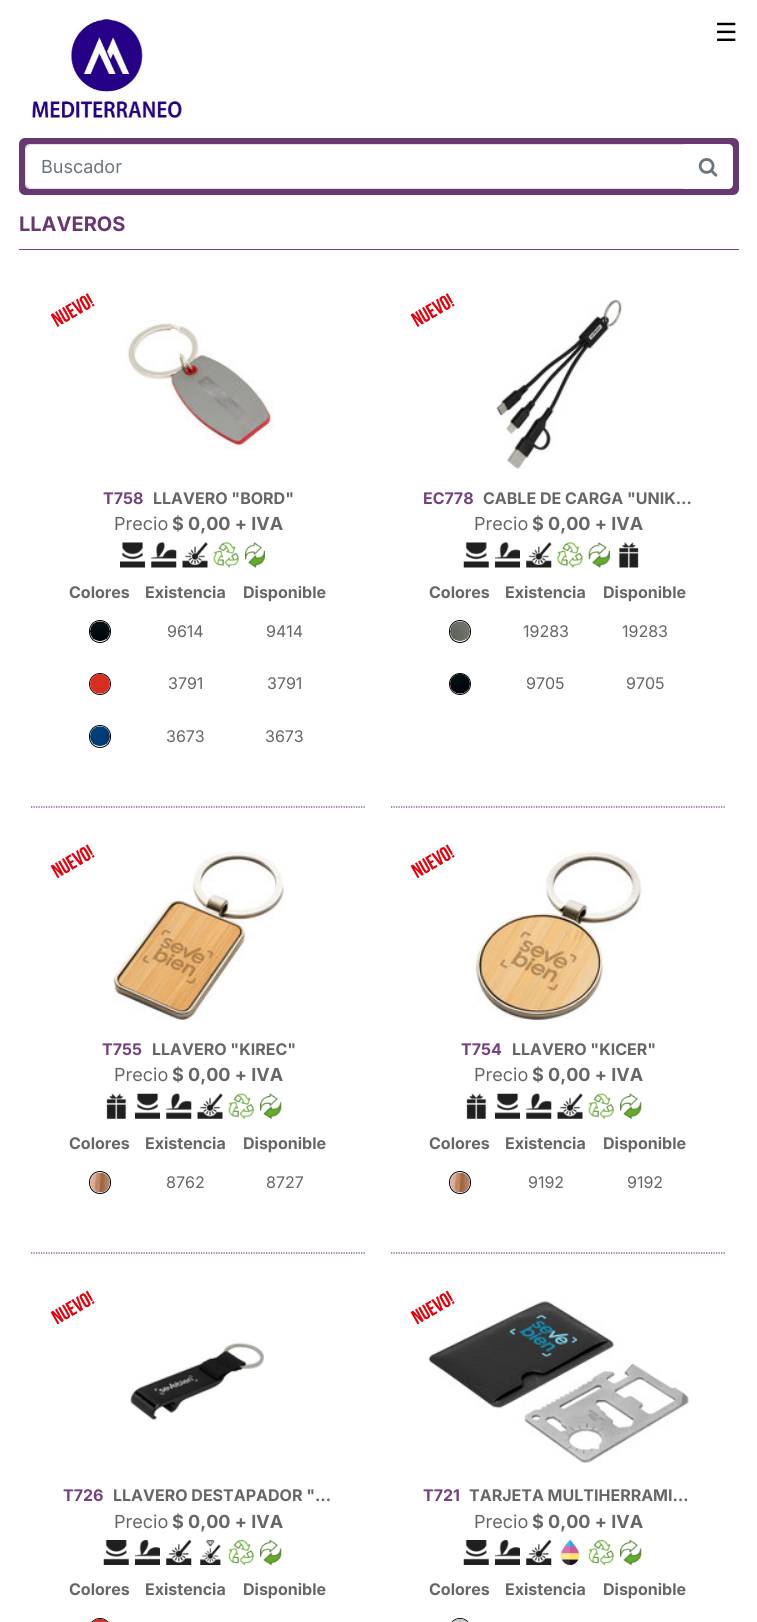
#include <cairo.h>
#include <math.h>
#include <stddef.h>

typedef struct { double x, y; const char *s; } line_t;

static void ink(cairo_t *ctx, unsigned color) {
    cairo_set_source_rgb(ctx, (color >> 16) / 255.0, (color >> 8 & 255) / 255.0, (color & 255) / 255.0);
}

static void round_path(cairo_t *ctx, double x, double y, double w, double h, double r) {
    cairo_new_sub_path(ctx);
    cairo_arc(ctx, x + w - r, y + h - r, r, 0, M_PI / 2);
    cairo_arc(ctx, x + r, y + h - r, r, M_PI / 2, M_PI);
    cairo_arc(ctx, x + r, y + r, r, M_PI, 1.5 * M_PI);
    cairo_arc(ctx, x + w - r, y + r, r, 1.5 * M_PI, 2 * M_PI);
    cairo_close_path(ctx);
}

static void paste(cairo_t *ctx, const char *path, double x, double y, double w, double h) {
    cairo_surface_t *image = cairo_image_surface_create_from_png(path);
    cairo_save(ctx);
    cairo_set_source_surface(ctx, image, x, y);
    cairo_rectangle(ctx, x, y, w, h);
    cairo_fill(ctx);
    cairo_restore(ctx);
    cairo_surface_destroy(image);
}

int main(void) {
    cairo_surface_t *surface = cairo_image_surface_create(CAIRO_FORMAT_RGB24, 757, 1622);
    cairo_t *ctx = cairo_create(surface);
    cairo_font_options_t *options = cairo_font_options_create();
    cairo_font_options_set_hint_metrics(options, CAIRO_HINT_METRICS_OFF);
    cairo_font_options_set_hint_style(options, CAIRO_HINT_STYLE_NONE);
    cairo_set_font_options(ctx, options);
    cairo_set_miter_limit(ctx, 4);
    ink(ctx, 0xFFFFFF);
    cairo_paint(ctx);
    paste(ctx, "media/1.png", 32, 19, 150, 99);
    cairo_select_font_face(ctx, "DejaVu Sans", CAIRO_FONT_SLANT_NORMAL, CAIRO_FONT_WEIGHT_NORMAL);
    cairo_set_font_size(ctx, 25);
    ink(ctx, 0x000000);
    cairo_move_to(ctx, 715, 41);
    cairo_show_text(ctx, "☰");
    ink(ctx, 0x683970);
    round_path(ctx, 19, 138, 720, 57, 6);
    cairo_fill(ctx);
    ink(ctx, 0xFFFFFF);
    cairo_new_path(ctx);
    cairo_move_to(ctx, 30, 145);
    cairo_line_to(ctx, 685, 145);
    cairo_line_to(ctx, 685, 188);
    cairo_line_to(ctx, 30, 188);
    cairo_curve_to(ctx, 28, 188, 26, 186, 26, 184);
    cairo_line_to(ctx, 26, 149);
    cairo_curve_to(ctx, 26, 147, 28, 145, 30, 145);
    cairo_close_path(ctx);
    cairo_fill(ctx);
    ink(ctx, 0xDEE2E6);
    cairo_set_fill_rule(ctx, CAIRO_FILL_RULE_EVEN_ODD);
    cairo_new_path(ctx);
    cairo_move_to(ctx, 30, 144);
    cairo_line_to(ctx, 685, 144);
    cairo_line_to(ctx, 685, 189);
    cairo_line_to(ctx, 30, 189);
    cairo_curve_to(ctx, 27, 189, 25, 187, 25, 184);
    cairo_line_to(ctx, 25, 149);
    cairo_curve_to(ctx, 25, 146, 27, 144, 30, 144);
    cairo_close_path(ctx);
    cairo_move_to(ctx, 30, 145);
    cairo_line_to(ctx, 685, 145);
    cairo_line_to(ctx, 685, 188);
    cairo_line_to(ctx, 30, 188);
    cairo_curve_to(ctx, 28, 188, 26, 186, 26, 184);
    cairo_line_to(ctx, 26, 149);
    cairo_curve_to(ctx, 26, 147, 28, 145, 30, 145);
    cairo_close_path(ctx);
    cairo_fill(ctx);
    cairo_select_font_face(ctx, "Inter", CAIRO_FONT_SLANT_NORMAL, CAIRO_FONT_WEIGHT_NORMAL);
    cairo_set_font_size(ctx, 18);
    ink(ctx, 0x6C757D);
    cairo_move_to(ctx, 41, 173);
    cairo_show_text(ctx, "Buscador");
    ink(ctx, 0xFFFFFF);
    cairo_new_path(ctx);
    cairo_move_to(ctx, 684, 144);
    cairo_line_to(ctx, 728, 144);
    cairo_curve_to(ctx, 731, 144, 733, 146, 733, 149);
    cairo_line_to(ctx, 733, 184);
    cairo_curve_to(ctx, 733, 187, 731, 189, 728, 189);
    cairo_line_to(ctx, 684, 189);
    cairo_close_path(ctx);
    cairo_fill(ctx);
    paste(ctx, "media/2.png", 698, 158, 20, 19);
    ink(ctx, 0x74427F);
    cairo_rectangle(ctx, 19, 249, 720, 1);
    cairo_fill(ctx);
    cairo_select_font_face(ctx, "Inter", CAIRO_FONT_SLANT_NORMAL, CAIRO_FONT_WEIGHT_BOLD);
    cairo_set_font_size(ctx, 20);
    ink(ctx, 0x663770);
    cairo_move_to(ctx, 19, 231);
    cairo_show_text(ctx, "LLAVEROS");
    cairo_new_path(ctx);
    cairo_move_to(ctx, 31, 807);
    cairo_line_to(ctx, 366, 807);
    cairo_set_line_width(ctx, 1.2);
    cairo_set_dash(ctx, (double[]){1.25, 1.25}, 2, 0);
    cairo_stroke(ctx);
    paste(ctx, "media/3.png", 50, 293, 45, 34);
    paste(ctx, "media/4.png", 126, 320, 149, 130);
    cairo_set_font_size(ctx, 16);
    ink(ctx, 0x74427F);
    cairo_move_to(ctx, 103, 504);
    cairo_show_text(ctx, "T758");
    ink(ctx, 0x666666);
    cairo_move_to(ctx, 153, 504);
    cairo_show_text(ctx, "LLAVERO \"BORD\"");
    cairo_select_font_face(ctx, "Inter", CAIRO_FONT_SLANT_NORMAL, CAIRO_FONT_WEIGHT_NORMAL);
    cairo_set_font_size(ctx, 18);
    cairo_move_to(ctx, 114, 530);
    cairo_show_text(ctx, "Precio");
    cairo_select_font_face(ctx, "Inter", CAIRO_FONT_SLANT_NORMAL, CAIRO_FONT_WEIGHT_BOLD);
    cairo_move_to(ctx, 172, 530);
    cairo_show_text(ctx, "$ 0,00 + IVA");
    paste(ctx, "media/5.png", 120, 542, 25, 26);
    paste(ctx, "media/6.png", 151, 542, 26, 26);
    paste(ctx, "media/7.png", 182, 542, 26, 26);
    paste(ctx, "media/8.png", 213, 542, 26, 26);
    paste(ctx, "media/9.png", 245, 542, 20, 26);
    cairo_set_font_size(ctx, 16);
    {
        static const line_t items[] = {
            {69, 598, "Colores"},
            {145, 598, "Existencia"},
            {243, 598, "Disponible"},
        };
        for (size_t i = 0; i < sizeof items / sizeof *items; i++) {
            cairo_move_to(ctx, items[i].x, items[i].y);
            cairo_show_text(ctx, items[i].s);
        }
    }
    round_path(ctx, 89.5, 620.5, 21, 22, 10.5);
    ink(ctx, 0x000000);
    cairo_set_line_width(ctx, 1);
    cairo_set_dash(ctx, NULL, 0, 0);
    cairo_stroke(ctx);
    paste(ctx, "media/10.png", 90, 621, 20, 21);
    cairo_select_font_face(ctx, "Inter", CAIRO_FONT_SLANT_NORMAL, CAIRO_FONT_WEIGHT_NORMAL);
    ink(ctx, 0x666666);
    cairo_move_to(ctx, 167, 637);
    cairo_show_text(ctx, "9614");
    cairo_move_to(ctx, 266, 637);
    cairo_show_text(ctx, "9414");
    cairo_new_path(ctx);
    cairo_arc(ctx, 100, 684, 10.5, 0, 2 * M_PI);
    ink(ctx, 0x000000);
    cairo_stroke(ctx);
    paste(ctx, "media/11.png", 90, 673, 20, 21);
    ink(ctx, 0x666666);
    cairo_move_to(ctx, 168, 689);
    cairo_show_text(ctx, "3791");
    cairo_move_to(ctx, 267, 689);
    cairo_show_text(ctx, "3791");
    round_path(ctx, 89.5, 725.5, 21, 22, 10.5);
    ink(ctx, 0x000000);
    cairo_stroke(ctx);
    paste(ctx, "media/12.png", 90, 726, 20, 21);
    ink(ctx, 0x666666);
    cairo_move_to(ctx, 166, 742);
    cairo_show_text(ctx, "3673");
    cairo_move_to(ctx, 265, 742);
    cairo_show_text(ctx, "3673");
    cairo_new_path(ctx);
    cairo_move_to(ctx, 391, 807);
    cairo_line_to(ctx, 726, 807);
    ink(ctx, 0x663770);
    cairo_set_line_width(ctx, 1.2);
    cairo_set_dash(ctx, (double[]){1.25, 1.25}, 2, 0);
    cairo_stroke(ctx);
    paste(ctx, "media/13.png", 410, 293, 45, 34);
    paste(ctx, "media/14.png", 496, 300, 126, 169);
    cairo_select_font_face(ctx, "Inter", CAIRO_FONT_SLANT_NORMAL, CAIRO_FONT_WEIGHT_BOLD);
    ink(ctx, 0x74427F);
    cairo_move_to(ctx, 423, 504);
    cairo_show_text(ctx, "EC778");
    ink(ctx, 0x666666);
    cairo_move_to(ctx, 483, 504);
    cairo_show_text(ctx, "CABLE DE CARGA \"UNIK…");
    cairo_select_font_face(ctx, "Inter", CAIRO_FONT_SLANT_NORMAL, CAIRO_FONT_WEIGHT_NORMAL);
    cairo_set_font_size(ctx, 18);
    cairo_move_to(ctx, 474, 530);
    cairo_show_text(ctx, "Precio");
    cairo_select_font_face(ctx, "Inter", CAIRO_FONT_SLANT_NORMAL, CAIRO_FONT_WEIGHT_BOLD);
    cairo_move_to(ctx, 532, 530);
    cairo_show_text(ctx, "$ 0,00 + IVA");
    paste(ctx, "media/15.png", 463, 542, 26, 26);
    paste(ctx, "media/16.png", 495, 542, 25, 26);
    paste(ctx, "media/17.png", 526, 542, 26, 26);
    paste(ctx, "media/18.png", 557, 542, 26, 26);
    paste(ctx, "media/19.png", 588, 542, 22, 26);
    paste(ctx, "media/20.png", 618, 542, 21, 26);
    cairo_set_font_size(ctx, 16);
    {
        static const line_t items[] = {
            {429, 598, "Colores"},
            {505, 598, "Existencia"},
            {603, 598, "Disponible"},
        };
        for (size_t i = 0; i < sizeof items / sizeof *items; i++) {
            cairo_move_to(ctx, items[i].x, items[i].y);
            cairo_show_text(ctx, items[i].s);
        }
    }
    round_path(ctx, 449.5, 620.5, 21, 22, 10.5);
    ink(ctx, 0x000000);
    cairo_set_line_width(ctx, 1);
    cairo_set_dash(ctx, NULL, 0, 0);
    cairo_stroke(ctx);
    paste(ctx, "media/21.png", 450, 621, 20, 21);
    cairo_select_font_face(ctx, "Inter", CAIRO_FONT_SLANT_NORMAL, CAIRO_FONT_WEIGHT_NORMAL);
    ink(ctx, 0x666666);
    cairo_move_to(ctx, 523, 637);
    cairo_show_text(ctx, "19283");
    cairo_move_to(ctx, 622, 637);
    cairo_show_text(ctx, "19283");
    cairo_new_path(ctx);
    cairo_arc(ctx, 460, 684, 10.5, 0, 2 * M_PI);
    ink(ctx, 0x000000);
    cairo_stroke(ctx);
    paste(ctx, "media/22.png", 450, 674, 20, 20);
    ink(ctx, 0x666666);
    cairo_move_to(ctx, 526, 689);
    cairo_show_text(ctx, "9705");
    cairo_move_to(ctx, 626, 689);
    cairo_show_text(ctx, "9705");
    cairo_new_path(ctx);
    cairo_move_to(ctx, 31, 1253);
    cairo_line_to(ctx, 366, 1253);
    ink(ctx, 0x663770);
    cairo_set_line_width(ctx, 1.2);
    cairo_set_dash(ctx, (double[]){1.25, 1.25}, 2, 0);
    cairo_stroke(ctx);
    paste(ctx, "media/23.png", 50, 844, 45, 34);
    paste(ctx, "media/24.png", 113, 851, 171, 169);
    cairo_select_font_face(ctx, "Inter", CAIRO_FONT_SLANT_NORMAL, CAIRO_FONT_WEIGHT_BOLD);
    ink(ctx, 0x74427F);
    cairo_move_to(ctx, 102, 1055);
    cairo_show_text(ctx, "T755");
    ink(ctx, 0x666666);
    cairo_move_to(ctx, 152, 1055);
    cairo_show_text(ctx, "LLAVERO \"KIREC\"");
    cairo_select_font_face(ctx, "Inter", CAIRO_FONT_SLANT_NORMAL, CAIRO_FONT_WEIGHT_NORMAL);
    cairo_set_font_size(ctx, 18);
    cairo_move_to(ctx, 114, 1081);
    cairo_show_text(ctx, "Precio");
    cairo_select_font_face(ctx, "Inter", CAIRO_FONT_SLANT_NORMAL, CAIRO_FONT_WEIGHT_BOLD);
    cairo_move_to(ctx, 172, 1081);
    cairo_show_text(ctx, "$ 0,00 + IVA");
    paste(ctx, "media/25.png", 106, 1093, 21, 26);
    paste(ctx, "media/26.png", 135, 1093, 25, 26);
    paste(ctx, "media/27.png", 166, 1093, 26, 26);
    paste(ctx, "media/28.png", 197, 1093, 26, 26);
    paste(ctx, "media/29.png", 228, 1093, 26, 26);
    paste(ctx, "media/30.png", 260, 1093, 22, 26);
    cairo_set_font_size(ctx, 16);
    {
        static const line_t items[] = {
            {69, 1149, "Colores"},
            {145, 1149, "Existencia"},
            {243, 1149, "Disponible"},
        };
        for (size_t i = 0; i < sizeof items / sizeof *items; i++) {
            cairo_move_to(ctx, items[i].x, items[i].y);
            cairo_show_text(ctx, items[i].s);
        }
    }
    round_path(ctx, 89.5, 1171.5, 21, 22, 10.5);
    ink(ctx, 0x000000);
    cairo_set_line_width(ctx, 1);
    cairo_set_dash(ctx, NULL, 0, 0);
    cairo_stroke(ctx);
    paste(ctx, "media/31.png", 90, 1172, 20, 21);
    cairo_select_font_face(ctx, "Inter", CAIRO_FONT_SLANT_NORMAL, CAIRO_FONT_WEIGHT_NORMAL);
    ink(ctx, 0x666666);
    cairo_move_to(ctx, 166, 1188);
    cairo_show_text(ctx, "8762");
    cairo_move_to(ctx, 266, 1188);
    cairo_show_text(ctx, "8727");
    cairo_new_path(ctx);
    cairo_move_to(ctx, 391, 1253);
    cairo_line_to(ctx, 726, 1253);
    ink(ctx, 0x663770);
    cairo_set_line_width(ctx, 1.2);
    cairo_set_dash(ctx, (double[]){1.25, 1.25}, 2, 0);
    cairo_stroke(ctx);
    paste(ctx, "media/32.png", 410, 844, 45, 34);
    paste(ctx, "media/33.png", 476, 851, 166, 169);
    cairo_select_font_face(ctx, "Inter", CAIRO_FONT_SLANT_NORMAL, CAIRO_FONT_WEIGHT_BOLD);
    ink(ctx, 0x74427F);
    cairo_move_to(ctx, 461, 1055);
    cairo_show_text(ctx, "T754");
    ink(ctx, 0x666666);
    cairo_move_to(ctx, 512, 1055);
    cairo_show_text(ctx, "LLAVERO \"KICER\"");
    cairo_select_font_face(ctx, "Inter", CAIRO_FONT_SLANT_NORMAL, CAIRO_FONT_WEIGHT_NORMAL);
    cairo_set_font_size(ctx, 18);
    cairo_move_to(ctx, 474, 1081);
    cairo_show_text(ctx, "Precio");
    cairo_select_font_face(ctx, "Inter", CAIRO_FONT_SLANT_NORMAL, CAIRO_FONT_WEIGHT_BOLD);
    cairo_move_to(ctx, 532, 1081);
    cairo_show_text(ctx, "$ 0,00 + IVA");
    paste(ctx, "media/34.png", 466, 1093, 21, 26);
    paste(ctx, "media/35.png", 495, 1093, 25, 26);
    paste(ctx, "media/27.png", 526, 1093, 26, 26);
    paste(ctx, "media/28.png", 557, 1093, 26, 26);
    paste(ctx, "media/29.png", 588, 1093, 26, 26);
    paste(ctx, "media/30.png", 620, 1093, 22, 26);
    cairo_set_font_size(ctx, 16);
    {
        static const line_t items[] = {
            {429, 1149, "Colores"},
            {505, 1149, "Existencia"},
            {603, 1149, "Disponible"},
        };
        for (size_t i = 0; i < sizeof items / sizeof *items; i++) {
            cairo_move_to(ctx, items[i].x, items[i].y);
            cairo_show_text(ctx, items[i].s);
        }
    }
    round_path(ctx, 449.5, 1171.5, 21, 22, 10.5);
    ink(ctx, 0x000000);
    cairo_set_line_width(ctx, 1);
    cairo_set_dash(ctx, NULL, 0, 0);
    cairo_stroke(ctx);
    paste(ctx, "media/31.png", 450, 1172, 20, 21);
    cairo_select_font_face(ctx, "Inter", CAIRO_FONT_SLANT_NORMAL, CAIRO_FONT_WEIGHT_NORMAL);
    ink(ctx, 0x666666);
    cairo_move_to(ctx, 528, 1188);
    cairo_show_text(ctx, "9192");
    cairo_move_to(ctx, 627, 1188);
    cairo_show_text(ctx, "9192");
    paste(ctx, "media/36.png", 50, 1290, 45, 35);
    paste(ctx, "media/37.png", 130, 1342, 134, 79);
    cairo_select_font_face(ctx, "Inter", CAIRO_FONT_SLANT_NORMAL, CAIRO_FONT_WEIGHT_BOLD);
    ink(ctx, 0x74427F);
    cairo_move_to(ctx, 63, 1501);
    cairo_show_text(ctx, "T726");
    ink(ctx, 0x666666);
    cairo_move_to(ctx, 113, 1501);
    cairo_show_text(ctx, "LLAVERO DESTAPADOR \"…");
    cairo_select_font_face(ctx, "Inter", CAIRO_FONT_SLANT_NORMAL, CAIRO_FONT_WEIGHT_NORMAL);
    cairo_set_font_size(ctx, 18);
    cairo_move_to(ctx, 114, 1528);
    cairo_show_text(ctx, "Precio");
    cairo_select_font_face(ctx, "Inter", CAIRO_FONT_SLANT_NORMAL, CAIRO_FONT_WEIGHT_BOLD);
    cairo_move_to(ctx, 172, 1528);
    cairo_show_text(ctx, "$ 0,00 + IVA");
    paste(ctx, "media/38.png", 103, 1540, 26, 25);
    paste(ctx, "media/39.png", 135, 1540, 25, 25);
    paste(ctx, "media/40.png", 166, 1540, 26, 25);
    paste(ctx, "media/41.png", 200, 1540, 21, 25);
    paste(ctx, "media/42.png", 228, 1540, 26, 25);
    paste(ctx, "media/43.png", 260, 1540, 22, 25);
    cairo_set_font_size(ctx, 16);
    {
        static const line_t items[] = {
            {69, 1595, "Colores"},
            {145, 1595, "Existencia"},
            {243, 1595, "Disponible"},
        };
        for (size_t i = 0; i < sizeof items / sizeof *items; i++) {
            cairo_move_to(ctx, items[i].x, items[i].y);
            cairo_show_text(ctx, items[i].s);
        }
    }
    round_path(ctx, 89.5, 1618.5, 21, 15, 10.5);
    ink(ctx, 0x000000);
    cairo_stroke(ctx);
    paste(ctx, "media/44.png", 92, 1618, 16, 4);
    paste(ctx, "media/46.png", 428, 1301, 261, 162);
    paste(ctx, "media/45.png", 410, 1290, 45, 35);
    ink(ctx, 0x74427F);
    cairo_move_to(ctx, 423, 1501);
    cairo_show_text(ctx, "T721");
    ink(ctx, 0x666666);
    cairo_move_to(ctx, 469, 1501);
    cairo_show_text(ctx, "TARJETA MULTIHERRAMI…");
    cairo_select_font_face(ctx, "Inter", CAIRO_FONT_SLANT_NORMAL, CAIRO_FONT_WEIGHT_NORMAL);
    cairo_set_font_size(ctx, 18);
    cairo_move_to(ctx, 474, 1528);
    cairo_show_text(ctx, "Precio");
    cairo_select_font_face(ctx, "Inter", CAIRO_FONT_SLANT_NORMAL, CAIRO_FONT_WEIGHT_BOLD);
    cairo_move_to(ctx, 532, 1528);
    cairo_show_text(ctx, "$ 0,00 + IVA");
    paste(ctx, "media/47.png", 463, 1540, 26, 25);
    paste(ctx, "media/48.png", 495, 1540, 25, 25);
    paste(ctx, "media/40.png", 526, 1540, 26, 25);
    paste(ctx, "media/49.png", 560, 1540, 20, 25);
    paste(ctx, "media/42.png", 588, 1540, 26, 25);
    paste(ctx, "media/43.png", 620, 1540, 22, 25);
    cairo_set_font_size(ctx, 16);
    {
        static const line_t items[] = {
            {429, 1595, "Colores"},
            {505, 1595, "Existencia"},
            {603, 1595, "Disponible"},
        };
        for (size_t i = 0; i < sizeof items / sizeof *items; i++) {
            cairo_move_to(ctx, items[i].x, items[i].y);
            cairo_show_text(ctx, items[i].s);
        }
    }
    round_path(ctx, 449.5, 1618.5, 21, 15, 10.5);
    ink(ctx, 0x000000);
    cairo_stroke(ctx);
    paste(ctx, "media/50.png", 452, 1618, 16, 4);
    cairo_surface_write_to_png(surface, "image.png");
    cairo_font_options_destroy(options);
    cairo_destroy(ctx);
    cairo_surface_destroy(surface);
    return 0;
}
